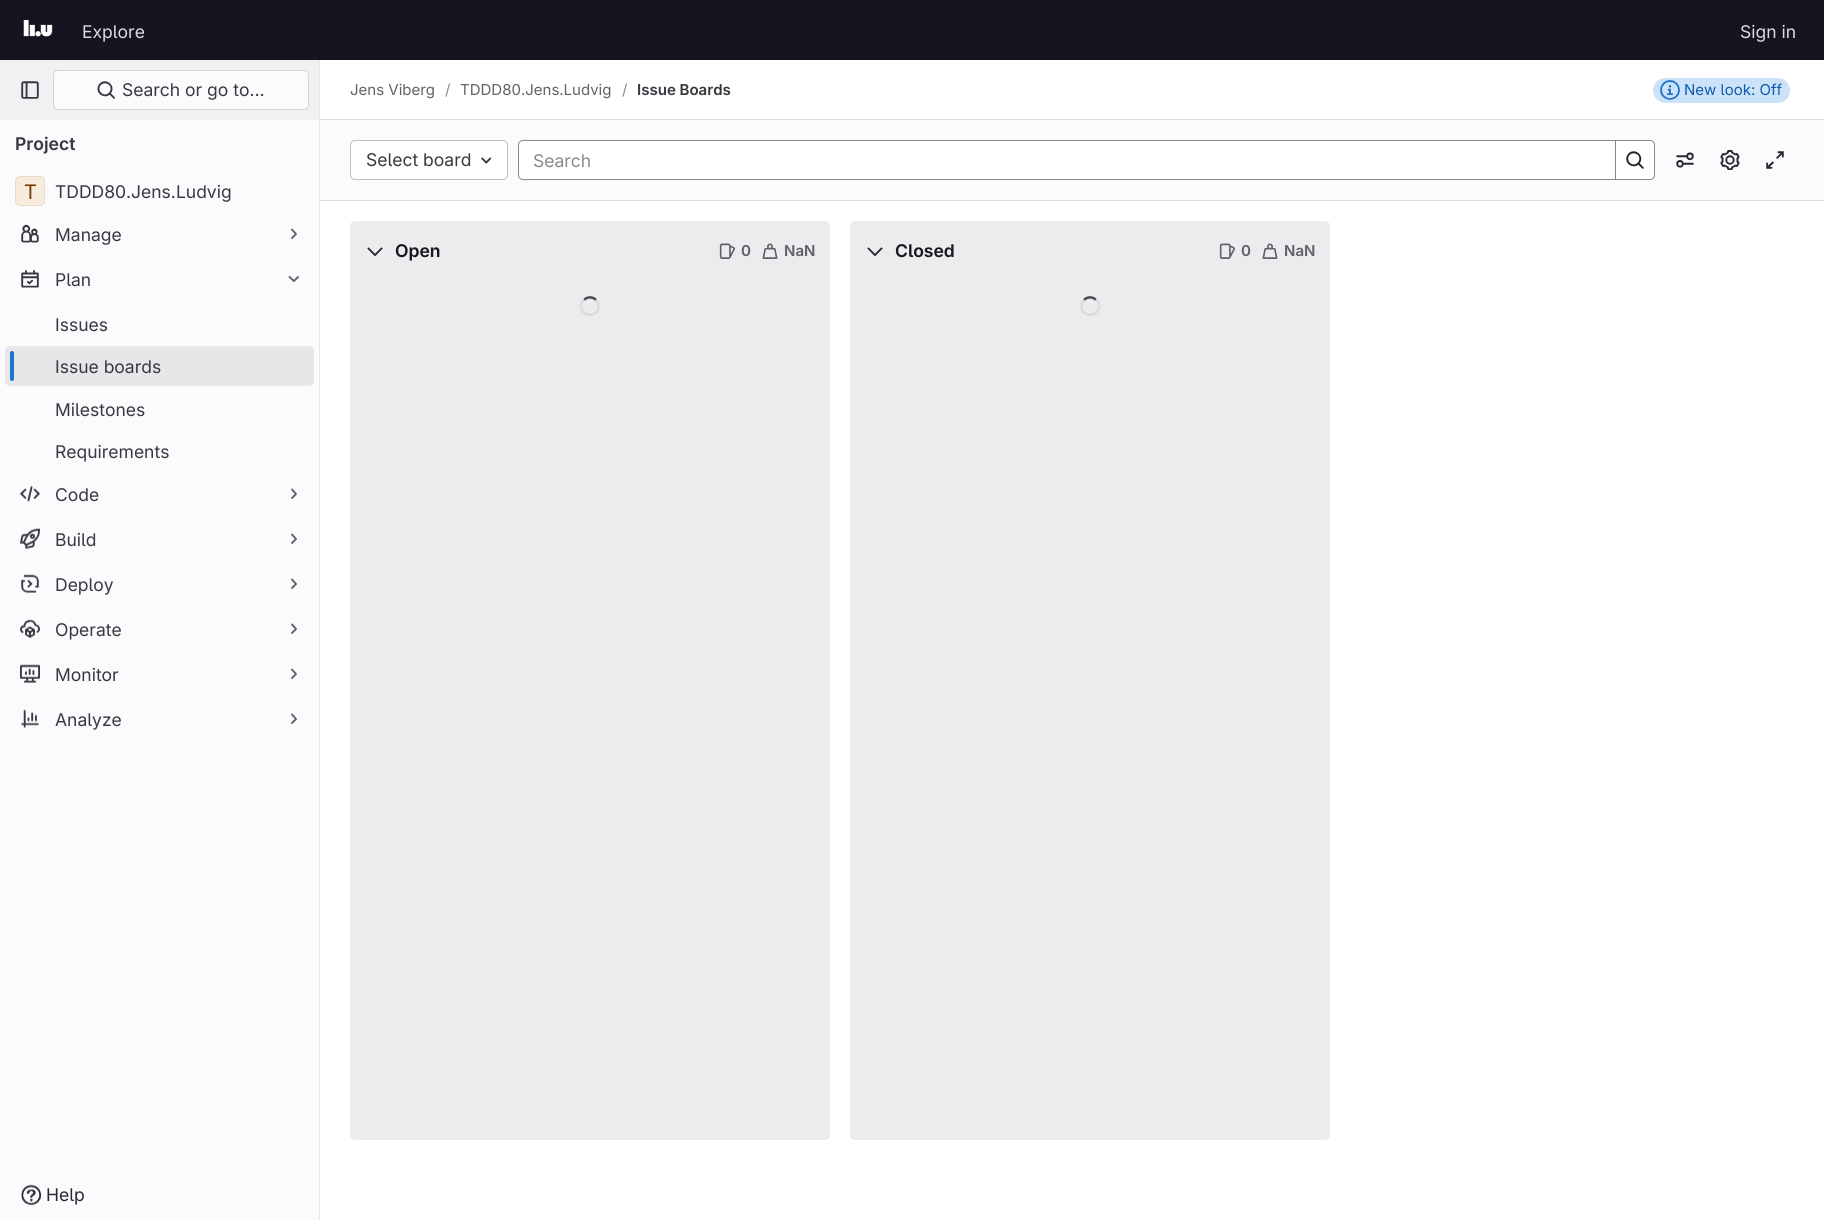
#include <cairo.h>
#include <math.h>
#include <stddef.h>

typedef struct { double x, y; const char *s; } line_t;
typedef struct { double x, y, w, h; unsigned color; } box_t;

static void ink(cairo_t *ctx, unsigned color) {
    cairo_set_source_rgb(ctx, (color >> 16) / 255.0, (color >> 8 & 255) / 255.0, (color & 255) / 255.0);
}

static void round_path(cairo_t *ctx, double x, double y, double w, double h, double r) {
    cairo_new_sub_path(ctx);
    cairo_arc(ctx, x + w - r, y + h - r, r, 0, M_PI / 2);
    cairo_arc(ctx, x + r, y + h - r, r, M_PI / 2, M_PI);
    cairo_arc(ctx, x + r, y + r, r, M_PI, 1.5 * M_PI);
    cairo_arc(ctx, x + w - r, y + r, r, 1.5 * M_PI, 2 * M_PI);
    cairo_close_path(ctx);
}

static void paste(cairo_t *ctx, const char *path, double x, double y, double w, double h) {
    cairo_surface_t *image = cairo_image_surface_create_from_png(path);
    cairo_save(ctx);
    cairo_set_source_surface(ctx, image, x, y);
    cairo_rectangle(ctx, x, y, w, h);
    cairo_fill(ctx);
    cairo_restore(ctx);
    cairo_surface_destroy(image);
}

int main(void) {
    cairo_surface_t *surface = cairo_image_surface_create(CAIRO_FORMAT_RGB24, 1824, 1220);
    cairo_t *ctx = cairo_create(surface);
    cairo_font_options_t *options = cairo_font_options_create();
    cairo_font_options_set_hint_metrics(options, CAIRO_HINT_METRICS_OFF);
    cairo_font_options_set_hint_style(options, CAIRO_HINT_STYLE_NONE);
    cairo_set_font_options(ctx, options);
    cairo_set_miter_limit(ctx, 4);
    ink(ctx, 0xFFFFFF);
    cairo_paint(ctx);
    ink(ctx, 0x171321);
    cairo_rectangle(ctx, 0, 0, 1824, 60);
    cairo_fill(ctx);
    paste(ctx, "media/1.png", 23, 20, 30, 17);
    cairo_select_font_face(ctx, "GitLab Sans", CAIRO_FONT_SLANT_NORMAL, CAIRO_FONT_WEIGHT_NORMAL);
    cairo_set_font_size(ctx, 17.5);
    ink(ctx, 0xDCDCDE);
    cairo_move_to(ctx, 82, 38);
    cairo_show_text(ctx, "Explore");
    cairo_move_to(ctx, 1740, 38);
    cairo_show_text(ctx, "Sign in");
    {
        static const box_t items[] = {
            {0, 120, 319, 1100, 0xFBFAFD},
            {319, 60, 1, 1160, 0xE7E6E9},
            {0, 60, 319, 60, 0xF1F0F3},
        };
        for (size_t i = 0; i < sizeof items / sizeof *items; i++) {
            ink(ctx, items[i].color);
            cairo_rectangle(ctx, items[i].x, items[i].y, items[i].w, items[i].h);
            cairo_fill(ctx);
        }
    }
    paste(ctx, "media/2.png", 21, 81, 18, 18);
    ink(ctx, 0xFBFAFD);
    round_path(ctx, 53, 70, 256, 40, 5);
    cairo_fill(ctx);
    round_path(ctx, 53.5, 70.5, 255, 39, 4.5);
    cairo_set_source_rgba(ctx, 0.02, 0.02, 0.024, 0.16);
    cairo_set_line_width(ctx, 1);
    cairo_stroke(ctx);
    paste(ctx, "media/3.png", 97, 81, 18, 18);
    ink(ctx, 0x3A383F);
    cairo_move_to(ctx, 122, 96);
    cairo_show_text(ctx, "Search or go to…");
    cairo_select_font_face(ctx, "GitLab Sans SemiBold", CAIRO_FONT_SLANT_NORMAL, CAIRO_FONT_WEIGHT_NORMAL);
    cairo_move_to(ctx, 15, 150);
    cairo_show_text(ctx, "Project");
    ink(ctx, 0xF7ECDC);
    round_path(ctx, 15, 176, 30, 30, 5);
    cairo_fill(ctx);
    round_path(ctx, 15.5, 176.5, 29, 29, 4.5);
    cairo_set_source_rgba(ctx, 0.02, 0.02, 0.024, 0.08);
    cairo_stroke(ctx);
    cairo_select_font_face(ctx, "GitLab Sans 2", CAIRO_FONT_SLANT_NORMAL, CAIRO_FONT_WEIGHT_NORMAL);
    cairo_set_font_size(ctx, 20);
    ink(ctx, 0x703800);
    cairo_move_to(ctx, 24, 199);
    cairo_show_text(ctx, "T");
    cairo_select_font_face(ctx, "GitLab Sans", CAIRO_FONT_SLANT_NORMAL, CAIRO_FONT_WEIGHT_NORMAL);
    cairo_set_font_size(ctx, 17.5);
    ink(ctx, 0x3A383F);
    cairo_move_to(ctx, 55, 198);
    cairo_show_text(ctx, "TDDD80.Jens.Ludvig");
    paste(ctx, "media/4.png", 21, 224, 18, 19);
    cairo_move_to(ctx, 55, 241);
    cairo_show_text(ctx, "Manage");
    cairo_new_path(ctx);
    cairo_move_to(ctx, 292, 229.5);
    cairo_line_to(ctx, 296, 234);
    cairo_line_to(ctx, 292, 238);
    ink(ctx, 0x626168);
    cairo_set_line_width(ctx, 1.9);
    cairo_set_line_cap(ctx, CAIRO_LINE_CAP_ROUND);
    cairo_set_line_join(ctx, CAIRO_LINE_JOIN_ROUND);
    cairo_stroke(ctx);
    paste(ctx, "media/5.png", 21, 270, 18, 18);
    ink(ctx, 0x3A383F);
    cairo_move_to(ctx, 55, 286);
    cairo_show_text(ctx, "Plan");
    cairo_new_path(ctx);
    cairo_move_to(ctx, 298, 277);
    cairo_line_to(ctx, 294, 281);
    cairo_line_to(ctx, 289.5, 277);
    ink(ctx, 0x626168);
    cairo_stroke(ctx);
    ink(ctx, 0x3A383F);
    cairo_move_to(ctx, 55, 331);
    cairo_show_text(ctx, "Issues");
    ink(ctx, 0xE7E6E9);
    round_path(ctx, 5, 346, 309, 40, 5);
    cairo_fill(ctx);
    ink(ctx, 0x1F75CB);
    round_path(ctx, 10, 351, 4, 30, 2);
    cairo_fill(ctx);
    ink(ctx, 0x3A383F);
    {
        static const line_t items[] = {
            {55, 373, "Issue boards"},
            {55, 416, "Milestones"},
            {55, 458, "Requirements"},
        };
        for (size_t i = 0; i < sizeof items / sizeof *items; i++) {
            cairo_move_to(ctx, items[i].x, items[i].y);
            cairo_show_text(ctx, items[i].s);
        }
    }
    paste(ctx, "media/6.png", 20, 485, 20, 17);
    cairo_move_to(ctx, 55, 501);
    cairo_show_text(ctx, "Code");
    cairo_new_path(ctx);
    cairo_move_to(ctx, 292, 489.5);
    cairo_line_to(ctx, 296, 494);
    cairo_line_to(ctx, 292, 498);
    ink(ctx, 0x626168);
    cairo_stroke(ctx);
    paste(ctx, "media/7.png", 20, 528, 20, 21);
    ink(ctx, 0x3A383F);
    cairo_move_to(ctx, 55, 546);
    cairo_show_text(ctx, "Build");
    cairo_new_path(ctx);
    cairo_move_to(ctx, 292, 534.5);
    cairo_line_to(ctx, 296, 539);
    cairo_line_to(ctx, 292, 543);
    ink(ctx, 0x626168);
    cairo_stroke(ctx);
    paste(ctx, "media/8.png", 21, 574, 18, 19);
    ink(ctx, 0x3A383F);
    cairo_move_to(ctx, 55, 591);
    cairo_show_text(ctx, "Deploy");
    cairo_new_path(ctx);
    cairo_move_to(ctx, 292, 579.5);
    cairo_line_to(ctx, 296, 584);
    cairo_line_to(ctx, 292, 588);
    ink(ctx, 0x626168);
    cairo_stroke(ctx);
    paste(ctx, "media/9.png", 20, 619, 20, 19);
    ink(ctx, 0x3A383F);
    cairo_move_to(ctx, 55, 636);
    cairo_show_text(ctx, "Operate");
    cairo_new_path(ctx);
    cairo_move_to(ctx, 292, 624.5);
    cairo_line_to(ctx, 296, 629);
    cairo_line_to(ctx, 292, 633);
    ink(ctx, 0x626168);
    cairo_stroke(ctx);
    paste(ctx, "media/10.png", 20, 664, 20, 19);
    ink(ctx, 0x3A383F);
    cairo_move_to(ctx, 55, 681);
    cairo_show_text(ctx, "Monitor");
    cairo_new_path(ctx);
    cairo_move_to(ctx, 292, 669.5);
    cairo_line_to(ctx, 296, 674);
    cairo_line_to(ctx, 292, 678);
    ink(ctx, 0x626168);
    cairo_stroke(ctx);
    paste(ctx, "media/11.png", 21, 709, 18, 19);
    ink(ctx, 0x3A383F);
    cairo_move_to(ctx, 55, 726);
    cairo_show_text(ctx, "Analyze");
    cairo_new_path(ctx);
    cairo_move_to(ctx, 292, 714.5);
    cairo_line_to(ctx, 296, 719);
    cairo_line_to(ctx, 292, 723);
    ink(ctx, 0x626168);
    cairo_stroke(ctx);
    paste(ctx, "media/12.png", 21, 1184, 21, 22);
    ink(ctx, 0x28272D);
    cairo_move_to(ctx, 46, 1201);
    cairo_show_text(ctx, "Help");
    ink(ctx, 0xDCDCDE);
    cairo_rectangle(ctx, 320, 119, 1504, 1);
    cairo_fill(ctx);
    cairo_set_font_size(ctx, 15);
    ink(ctx, 0x626168);
    cairo_move_to(ctx, 350, 95);
    cairo_show_text(ctx, "Jens Viberg");
    ink(ctx, 0x89888D);
    cairo_move_to(ctx, 445, 95);
    cairo_show_text(ctx, "/");
    ink(ctx, 0x626168);
    cairo_move_to(ctx, 460, 95);
    cairo_show_text(ctx, "TDDD80.Jens.Ludvig");
    ink(ctx, 0x89888D);
    cairo_move_to(ctx, 622, 95);
    cairo_show_text(ctx, "/");
    cairo_select_font_face(ctx, "GitLab Sans SemiBold", CAIRO_FONT_SLANT_NORMAL, CAIRO_FONT_WEIGHT_NORMAL);
    ink(ctx, 0x3A383F);
    cairo_move_to(ctx, 637, 95);
    cairo_show_text(ctx, "Issue Boards");
    ink(ctx, 0xCBE2F9);
    round_path(ctx, 1653, 78, 137, 25, 12.5);
    cairo_fill(ctx);
    paste(ctx, "media/13.png", 1660, 80, 20, 20);
    cairo_select_font_face(ctx, "GitLab Sans", CAIRO_FONT_SLANT_NORMAL, CAIRO_FONT_WEIGHT_NORMAL);
    ink(ctx, 0x0B5CAD);
    cairo_move_to(ctx, 1684, 95);
    cairo_show_text(ctx, "New look: Off");
    ink(ctx, 0xFBFAFD);
    cairo_rectangle(ctx, 320, 120, 1504, 80);
    cairo_fill(ctx);
    ink(ctx, 0xDCDCDE);
    cairo_rectangle(ctx, 320, 200, 1504, 1);
    cairo_fill(ctx);
    ink(ctx, 0xFFFFFF);
    round_path(ctx, 350.5, 140.5, 157, 39, 4.5);
    cairo_fill_preserve(ctx);
    ink(ctx, 0xBFBFC3);
    cairo_set_line_width(ctx, 1);
    cairo_set_line_cap(ctx, CAIRO_LINE_CAP_BUTT);
    cairo_set_line_join(ctx, CAIRO_LINE_JOIN_MITER);
    cairo_stroke(ctx);
    cairo_set_font_size(ctx, 17.5);
    ink(ctx, 0x3A383F);
    cairo_move_to(ctx, 366, 166);
    cairo_show_text(ctx, "Select board");
    paste(ctx, "media/14.png", 481, 157, 11, 7);
    ink(ctx, 0xFFFFFF);
    cairo_new_path(ctx);
    cairo_move_to(ctx, 523, 140.5);
    cairo_line_to(ctx, 1615.5, 140.5);
    cairo_line_to(ctx, 1615.5, 179.5);
    cairo_line_to(ctx, 523, 179.5);
    cairo_curve_to(ctx, 520.5, 179.5, 518.5, 177.5, 518.5, 175);
    cairo_line_to(ctx, 518.5, 145);
    cairo_curve_to(ctx, 518.5, 142.5, 520.5, 140.5, 523, 140.5);
    cairo_close_path(ctx);
    cairo_fill_preserve(ctx);
    ink(ctx, 0x89888D);
    cairo_stroke(ctx);
    cairo_move_to(ctx, 533, 167);
    cairo_show_text(ctx, "Search");
    ink(ctx, 0xFFFFFF);
    cairo_new_path(ctx);
    cairo_move_to(ctx, 1615.5, 140.5);
    cairo_line_to(ctx, 1650, 140.5);
    cairo_curve_to(ctx, 1652.5, 140.5, 1654.5, 142.5, 1654.5, 145);
    cairo_line_to(ctx, 1654.5, 175);
    cairo_curve_to(ctx, 1654.5, 177.5, 1652.5, 179.5, 1650, 179.5);
    cairo_line_to(ctx, 1615.5, 179.5);
    cairo_close_path(ctx);
    cairo_fill_preserve(ctx);
    ink(ctx, 0x89888D);
    cairo_stroke(ctx);
    paste(ctx, "media/15.png", 1626, 151, 18, 18);
    paste(ctx, "media/16.png", 1676, 152, 18, 16);
    paste(ctx, "media/17.png", 1720, 150, 20, 20);
    paste(ctx, "media/18.png", 1766, 151, 18, 18);
    ink(ctx, 0xECECEF);
    round_path(ctx, 350, 221, 480, 919, 5);
    cairo_fill(ctx);
    paste(ctx, "media/19.png", 367, 247, 16, 9);
    cairo_select_font_face(ctx, "GitLab Sans SemiBold", CAIRO_FONT_SLANT_NORMAL, CAIRO_FONT_WEIGHT_NORMAL);
    ink(ctx, 0x18171D);
    cairo_move_to(ctx, 395, 257);
    cairo_show_text(ctx, "Open");
    paste(ctx, "media/20.png", 719, 243, 16, 16);
    cairo_set_font_size(ctx, 15);
    ink(ctx, 0x626168);
    cairo_move_to(ctx, 741, 256);
    cairo_show_text(ctx, "0");
    paste(ctx, "media/21.png", 762, 243, 16, 16);
    cairo_move_to(ctx, 784, 256);
    cairo_show_text(ctx, "NaN");
    cairo_new_path(ctx);
    cairo_move_to(ctx, 584, 300);
    cairo_curve_to(ctx, 587, 296.5, 593, 296.5, 596, 300);
    ink(ctx, 0x4C4B51);
    cairo_set_line_width(ctx, 2.5);
    cairo_stroke(ctx);
    cairo_new_path(ctx);
    cairo_move_to(ctx, 596, 300);
    cairo_curve_to(ctx, 598, 302, 599, 305, 598.5, 308);
    cairo_curve_to(ctx, 596.5, 318, 581, 316.5, 581, 306);
    cairo_curve_to(ctx, 581, 304, 582, 301.5, 584, 300);
    ink(ctx, 0xDCDCDE);
    cairo_stroke(ctx);
    ink(ctx, 0xECECEF);
    round_path(ctx, 850, 221, 480, 919, 5);
    cairo_fill(ctx);
    paste(ctx, "media/19.png", 867, 247, 16, 9);
    cairo_set_font_size(ctx, 17.5);
    ink(ctx, 0x18171D);
    cairo_move_to(ctx, 895, 257);
    cairo_show_text(ctx, "Closed");
    paste(ctx, "media/20.png", 1219, 243, 16, 16);
    cairo_set_font_size(ctx, 15);
    ink(ctx, 0x626168);
    cairo_move_to(ctx, 1241, 256);
    cairo_show_text(ctx, "0");
    paste(ctx, "media/22.png", 1262, 243, 16, 16);
    cairo_move_to(ctx, 1284, 256);
    cairo_show_text(ctx, "NaN");
    cairo_new_path(ctx);
    cairo_move_to(ctx, 1084, 300);
    cairo_curve_to(ctx, 1087, 296.5, 1093, 296.5, 1096, 300);
    ink(ctx, 0x4C4B51);
    cairo_stroke(ctx);
    cairo_new_path(ctx);
    cairo_move_to(ctx, 1096, 300);
    cairo_curve_to(ctx, 1098, 301.5, 1099, 304, 1099, 306);
    cairo_curve_to(ctx, 1099, 316.5, 1083.5, 318, 1081.5, 308);
    cairo_curve_to(ctx, 1081, 305, 1082, 302, 1084, 300);
    ink(ctx, 0xDCDCDE);
    cairo_stroke(ctx);
    cairo_surface_write_to_png(surface, "image.png");
    cairo_font_options_destroy(options);
    cairo_destroy(ctx);
    cairo_surface_destroy(surface);
    return 0;
}
